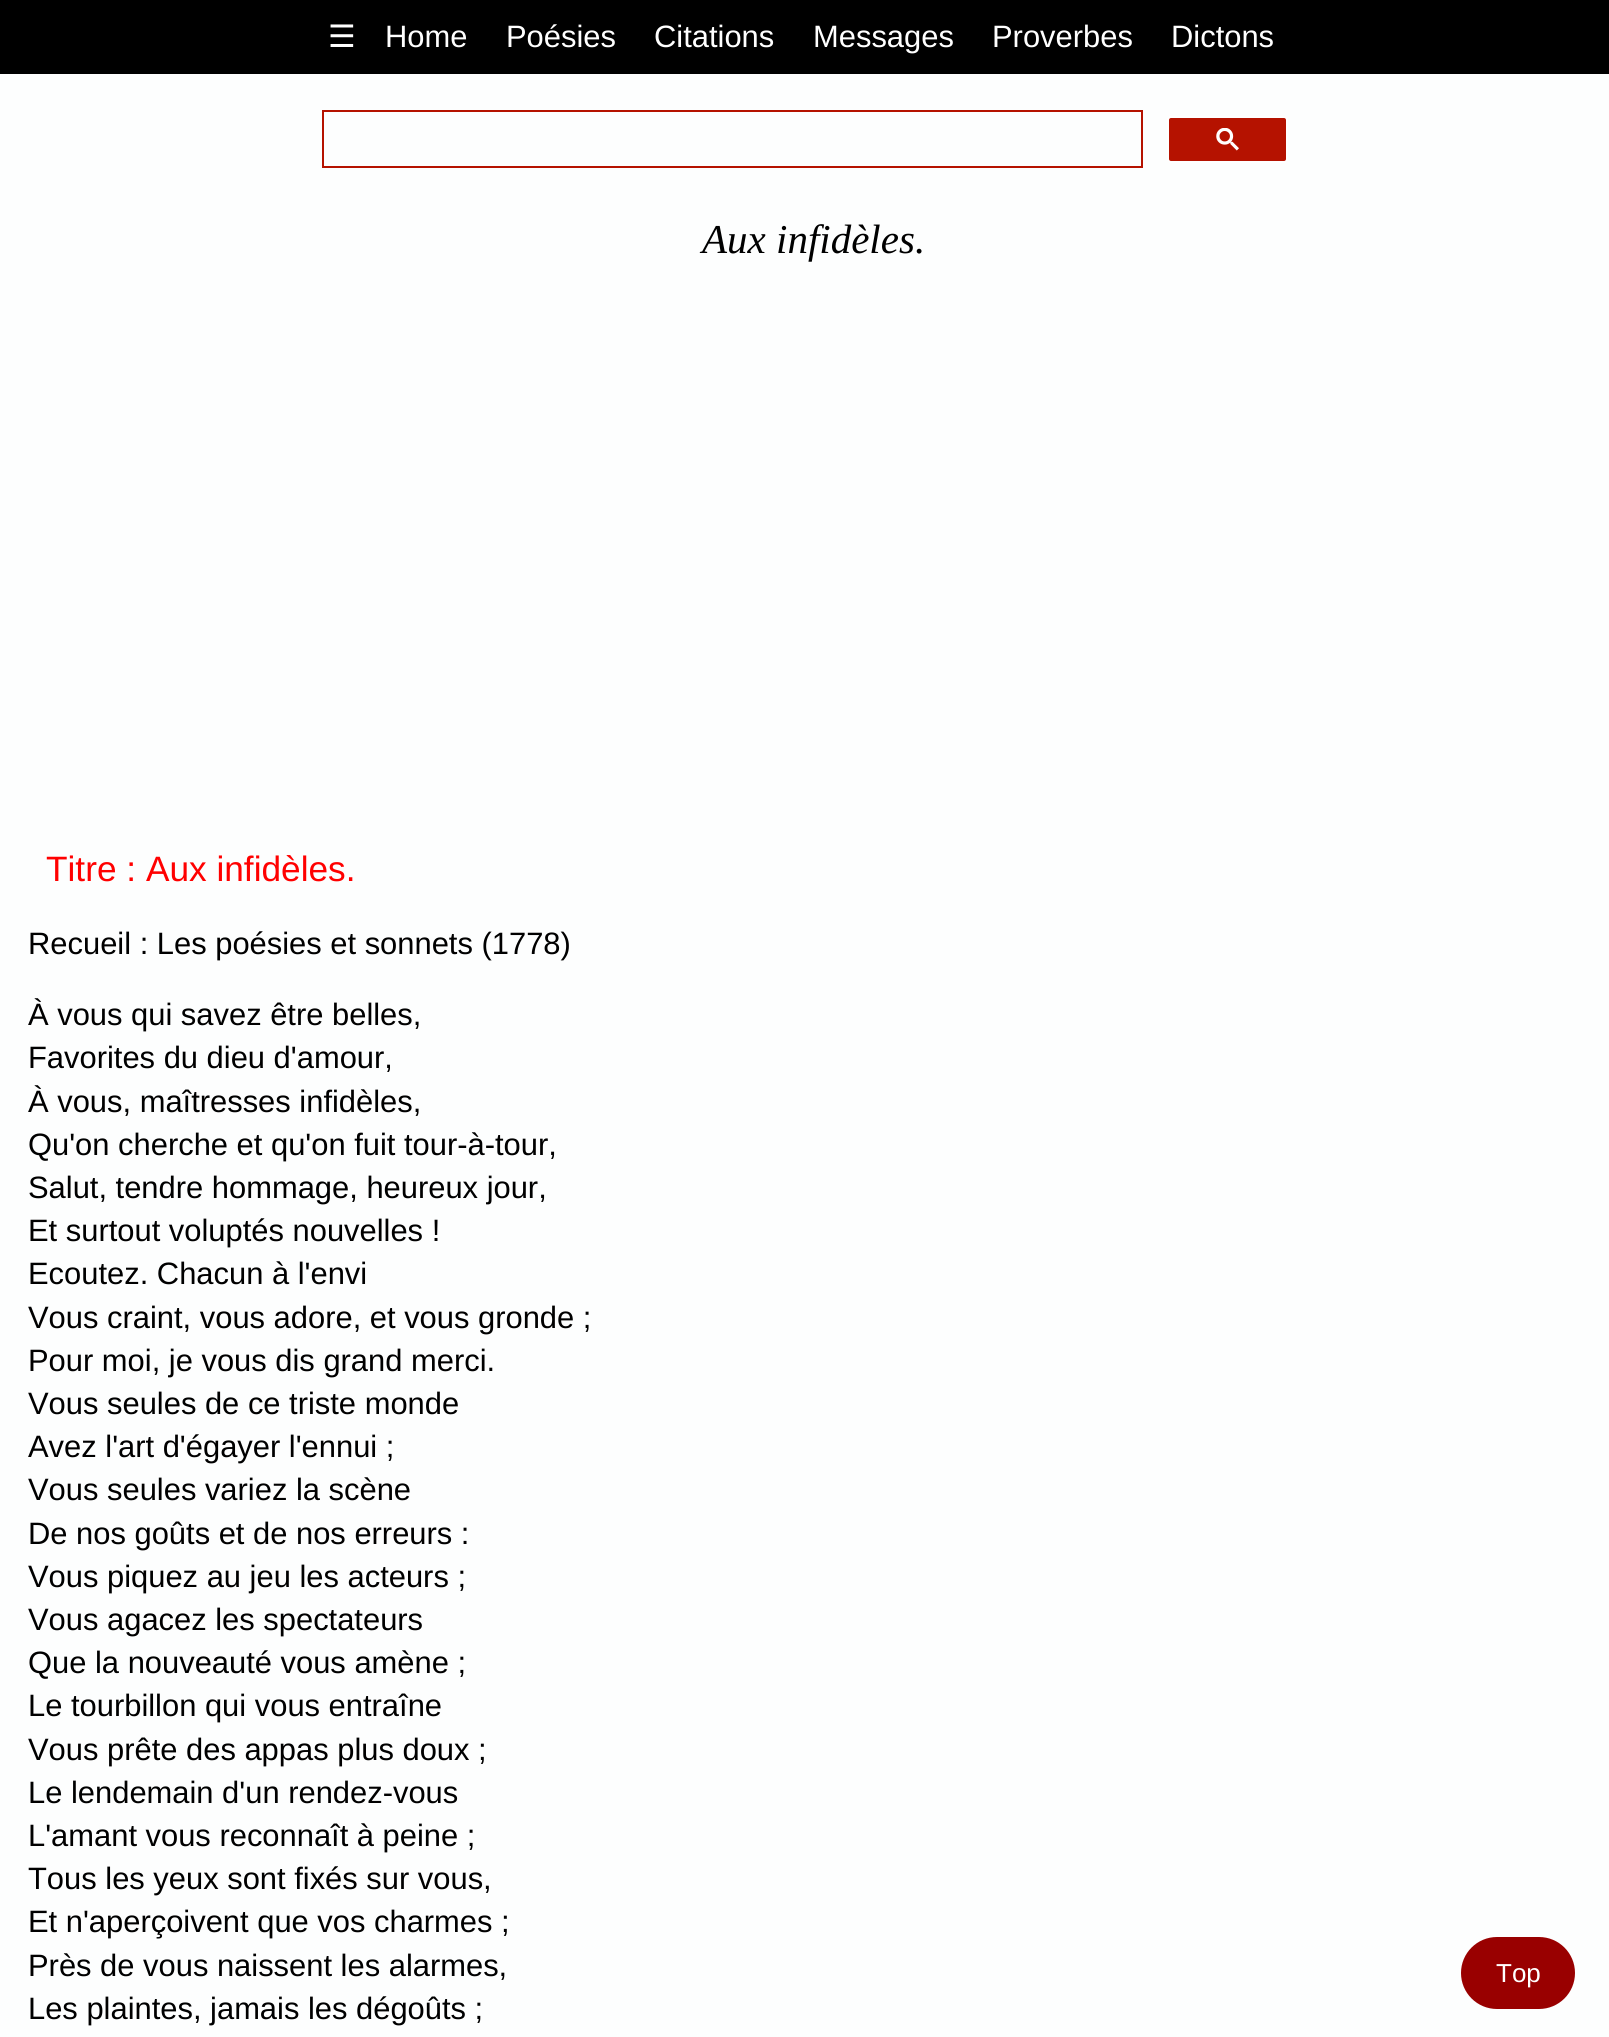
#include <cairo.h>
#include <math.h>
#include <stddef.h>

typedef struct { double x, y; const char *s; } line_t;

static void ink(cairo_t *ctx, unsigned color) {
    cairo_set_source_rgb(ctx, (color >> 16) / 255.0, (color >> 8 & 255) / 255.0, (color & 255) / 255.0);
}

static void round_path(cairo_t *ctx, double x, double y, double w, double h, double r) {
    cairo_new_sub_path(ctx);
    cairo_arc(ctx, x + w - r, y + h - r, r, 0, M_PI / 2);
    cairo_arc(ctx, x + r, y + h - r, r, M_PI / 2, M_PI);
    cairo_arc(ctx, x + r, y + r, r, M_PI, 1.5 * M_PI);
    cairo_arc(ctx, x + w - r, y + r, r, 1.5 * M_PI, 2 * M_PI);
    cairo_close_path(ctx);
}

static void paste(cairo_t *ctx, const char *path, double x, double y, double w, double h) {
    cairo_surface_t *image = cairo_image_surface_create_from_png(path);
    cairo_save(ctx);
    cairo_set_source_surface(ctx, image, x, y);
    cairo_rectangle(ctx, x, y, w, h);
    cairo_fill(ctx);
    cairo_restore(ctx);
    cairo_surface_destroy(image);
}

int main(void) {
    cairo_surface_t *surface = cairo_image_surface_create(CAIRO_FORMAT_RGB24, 1609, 2037);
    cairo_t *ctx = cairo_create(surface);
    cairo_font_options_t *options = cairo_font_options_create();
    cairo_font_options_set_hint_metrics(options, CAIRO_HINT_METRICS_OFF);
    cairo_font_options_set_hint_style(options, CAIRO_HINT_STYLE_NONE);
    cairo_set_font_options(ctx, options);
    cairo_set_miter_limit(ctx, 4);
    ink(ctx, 0xFDFEFE);
    cairo_paint(ctx);
    ink(ctx, 0x000000);
    cairo_rectangle(ctx, 0, 0, 1609, 74);
    cairo_fill(ctx);
    cairo_select_font_face(ctx, "DejaVu Sans", CAIRO_FONT_SLANT_NORMAL, CAIRO_FONT_WEIGHT_NORMAL);
    cairo_set_font_size(ctx, 30.9);
    ink(ctx, 0xFFFFFF);
    cairo_move_to(ctx, 328, 47);
    cairo_show_text(ctx, "☰");
    cairo_select_font_face(ctx, "Liberation Sans", CAIRO_FONT_SLANT_NORMAL, CAIRO_FONT_WEIGHT_NORMAL);
    {
        static const line_t items[] = {
            {385, 47, "Home"},
            {506, 47, "Poésies"},
            {654, 47, "Citations"},
            {813, 47, "Messages"},
            {992, 47, "Proverbes"},
            {1171, 47, "Dictons"},
        };
        for (size_t i = 0; i < sizeof items / sizeof *items; i++) {
            cairo_move_to(ctx, items[i].x, items[i].y);
            cairo_show_text(ctx, items[i].s);
        }
    }
    cairo_rectangle(ctx, 323, 111, 819, 56);
    ink(ctx, 0xB51200);
    cairo_stroke(ctx);
    round_path(ctx, 1168, 117, 119, 45, 3);
    cairo_fill_preserve(ctx);
    ink(ctx, 0xFFFFFF);
    cairo_stroke(ctx);
    paste(ctx, "media/1.png", 1216, 128, 23, 23);
    cairo_select_font_face(ctx, "Liberation Serif", CAIRO_FONT_SLANT_ITALIC, CAIRO_FONT_WEIGHT_NORMAL);
    cairo_set_font_size(ctx, 41);
    ink(ctx, 0x000000);
    cairo_move_to(ctx, 702, 253);
    cairo_show_text(ctx, "Aux infidèles.");
    cairo_select_font_face(ctx, "Liberation Sans", CAIRO_FONT_SLANT_NORMAL, CAIRO_FONT_WEIGHT_NORMAL);
    cairo_set_font_size(ctx, 35.25);
    ink(ctx, 0xFF0000);
    cairo_move_to(ctx, 46, 881);
    cairo_show_text(ctx, "Titre : Aux infidèles.");
    cairo_set_font_size(ctx, 30.9);
    ink(ctx, 0x000000);
    {
        static const line_t items[] = {
            {28, 954, "Recueil : Les poésies et sonnets (1778)"},
            {28, 1025, "À vous qui savez être belles,"},
            {28, 1068, "Favorites du dieu d'amour,"},
            {28, 1112, "À vous, maîtresses infidèles,"},
            {28, 1155, "Qu'on cherche et qu'on fuit tour-à-tour,"},
            {28, 1198, "Salut, tendre hommage, heureux jour,"},
            {28, 1241, "Et surtout voluptés nouvelles !"},
            {28, 1284, "Ecoutez. Chacun à l'envi"},
            {28, 1328, "Vous craint, vous adore, et vous gronde ;"},
            {28, 1371, "Pour moi, je vous dis grand merci."},
            {28, 1414, "Vous seules de ce triste monde"},
            {28, 1457, "Avez l'art d'égayer l'ennui ;"},
            {28, 1500, "Vous seules variez la scène"},
            {28, 1544, "De nos goûts et de nos erreurs :"},
            {28, 1587, "Vous piquez au jeu les acteurs ;"},
            {28, 1630, "Vous agacez les spectateurs"},
            {28, 1673, "Que la nouveauté vous amène ;"},
            {28, 1716, "Le tourbillon qui vous entraîne"},
            {28, 1760, "Vous prête des appas plus doux ;"},
            {28, 1803, "Le lendemain d'un rendez-vous"},
            {28, 1846, "L'amant vous reconnaît à peine ;"},
            {28, 1889, "Tous les yeux sont fixés sur vous,"},
            {28, 1932, "Et n'aperçoivent que vos charmes ;"},
            {28, 1976, "Près de vous naissent les alarmes,"},
            {28, 2019, "Les plaintes, jamais les dégoûts ;"},
        };
        for (size_t i = 0; i < sizeof items / sizeof *items; i++) {
            cairo_move_to(ctx, items[i].x, items[i].y);
            cairo_show_text(ctx, items[i].s);
        }
    }
    ink(ctx, 0x990000);
    round_path(ctx, 1461, 1937, 114, 72, 36);
    cairo_fill(ctx);
    cairo_set_font_size(ctx, 26);
    ink(ctx, 0xFFFFFF);
    cairo_move_to(ctx, 1496, 1982);
    cairo_show_text(ctx, "Top");
    cairo_surface_write_to_png(surface, "image.png");
    cairo_font_options_destroy(options);
    cairo_destroy(ctx);
    cairo_surface_destroy(surface);
    return 0;
}
